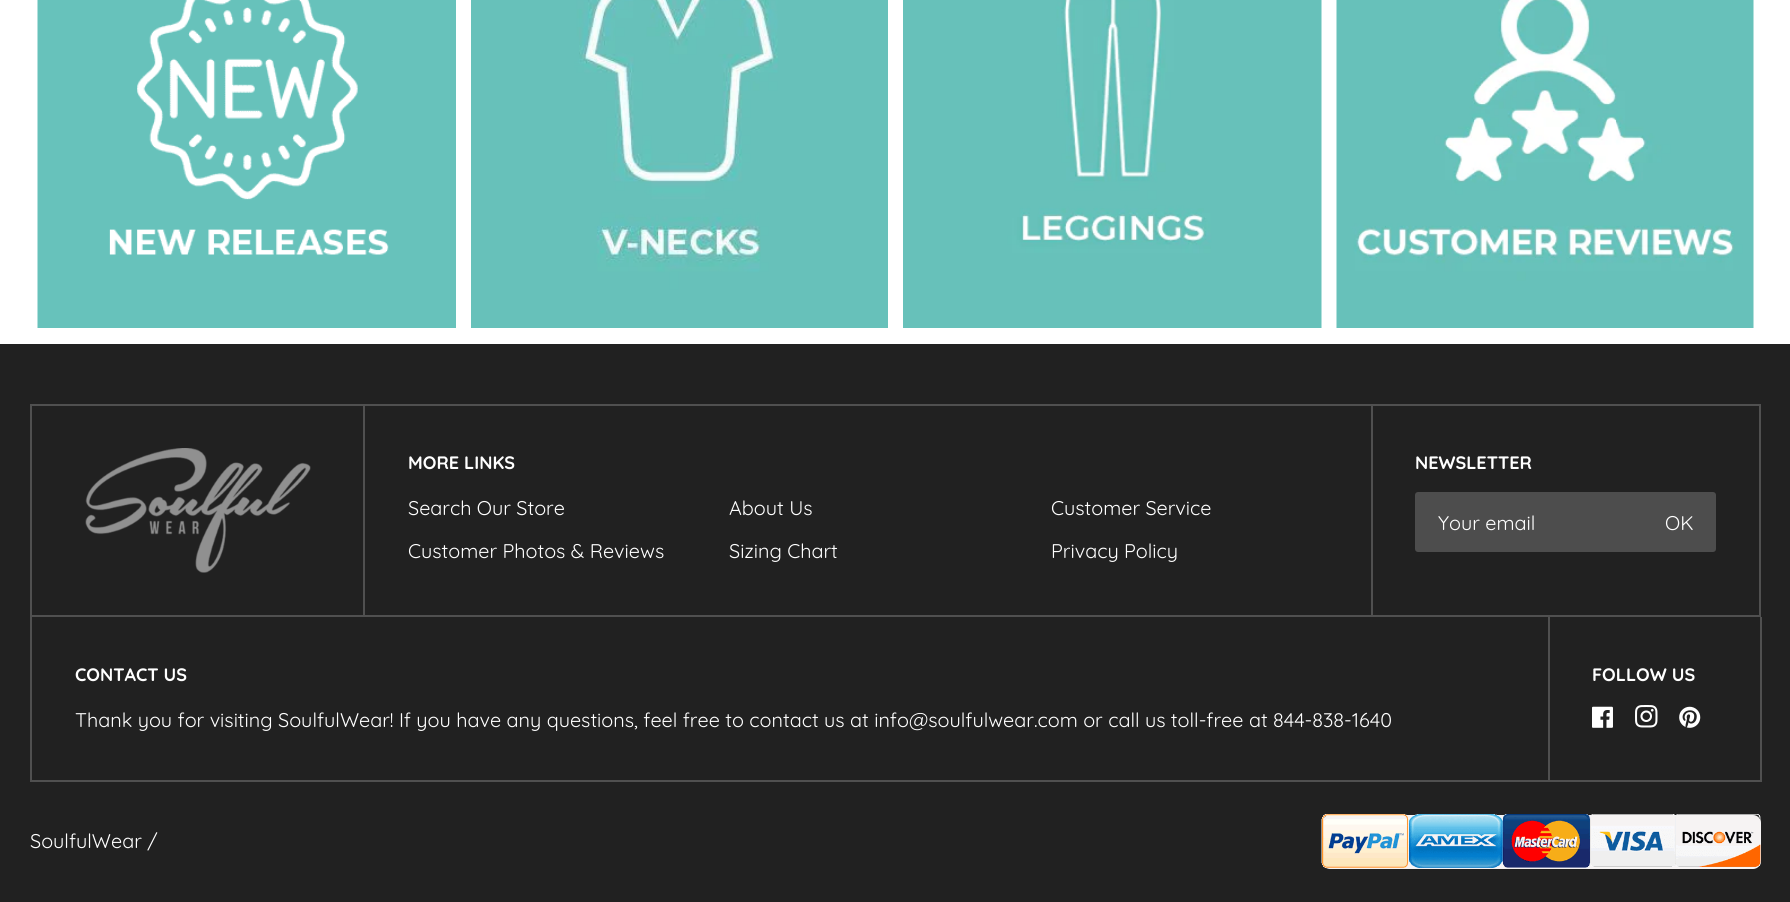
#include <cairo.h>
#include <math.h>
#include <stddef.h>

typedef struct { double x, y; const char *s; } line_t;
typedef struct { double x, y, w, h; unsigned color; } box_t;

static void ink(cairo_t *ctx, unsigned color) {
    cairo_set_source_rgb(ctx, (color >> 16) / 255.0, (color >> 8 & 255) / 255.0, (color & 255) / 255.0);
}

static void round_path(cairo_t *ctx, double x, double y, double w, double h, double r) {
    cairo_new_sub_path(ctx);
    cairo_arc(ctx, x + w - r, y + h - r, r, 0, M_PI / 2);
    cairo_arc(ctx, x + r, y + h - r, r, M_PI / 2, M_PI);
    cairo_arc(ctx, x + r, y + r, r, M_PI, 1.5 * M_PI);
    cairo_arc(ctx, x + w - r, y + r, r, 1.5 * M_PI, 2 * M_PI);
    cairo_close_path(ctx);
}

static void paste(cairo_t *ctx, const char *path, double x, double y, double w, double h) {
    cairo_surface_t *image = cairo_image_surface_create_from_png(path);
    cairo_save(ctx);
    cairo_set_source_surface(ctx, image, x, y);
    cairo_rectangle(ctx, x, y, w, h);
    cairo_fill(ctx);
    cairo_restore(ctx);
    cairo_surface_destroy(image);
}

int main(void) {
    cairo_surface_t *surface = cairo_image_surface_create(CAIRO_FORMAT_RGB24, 1790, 902);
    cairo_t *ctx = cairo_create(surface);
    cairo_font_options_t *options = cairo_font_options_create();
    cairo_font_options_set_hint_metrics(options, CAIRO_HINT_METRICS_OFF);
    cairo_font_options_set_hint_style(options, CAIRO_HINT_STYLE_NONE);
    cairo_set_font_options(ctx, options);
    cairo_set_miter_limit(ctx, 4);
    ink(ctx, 0xFFFFFF);
    cairo_paint(ctx);
    paste(ctx, "media/1.png", 37, 0, 419, 328);
    paste(ctx, "media/2.png", 471, 0, 417, 328);
    paste(ctx, "media/3.png", 903, 0, 419, 328);
    paste(ctx, "media/4.png", 1336, 0, 418, 328);
    ink(ctx, 0x212121);
    cairo_rectangle(ctx, 0, 344, 1790, 558);
    cairo_fill(ctx);
    cairo_rectangle(ctx, 31, 405, 1729, 211);
    ink(ctx, 0x505050);
    cairo_stroke(ctx);
    cairo_rectangle(ctx, 363, 405, 2, 210);
    cairo_fill(ctx);
    paste(ctx, "media/5.png", 85, 448, 226, 125);
    cairo_rectangle(ctx, 1371, 405, 2, 210);
    cairo_fill(ctx);
    cairo_select_font_face(ctx, "Quicksand", CAIRO_FONT_SLANT_NORMAL, CAIRO_FONT_WEIGHT_BOLD);
    cairo_set_font_size(ctx, 18);
    ink(ctx, 0xFFFFFF);
    cairo_move_to(ctx, 408, 469);
    cairo_show_text(ctx, "MORE LINKS");
    cairo_select_font_face(ctx, "Quicksand", CAIRO_FONT_SLANT_NORMAL, CAIRO_FONT_WEIGHT_NORMAL);
    cairo_set_font_size(ctx, 19.8);
    {
        static const line_t items[] = {
            {408, 515, "Search Our Store"},
            {729, 515, "About Us"},
            {1051, 515, "Customer Service"},
            {408, 558, "Customer Photos & Reviews"},
            {729, 558, "Sizing Chart"},
            {1051, 558, "Privacy Policy"},
        };
        for (size_t i = 0; i < sizeof items / sizeof *items; i++) {
            cairo_move_to(ctx, items[i].x, items[i].y);
            cairo_show_text(ctx, items[i].s);
        }
    }
    cairo_select_font_face(ctx, "Quicksand", CAIRO_FONT_SLANT_NORMAL, CAIRO_FONT_WEIGHT_BOLD);
    cairo_set_font_size(ctx, 18);
    cairo_move_to(ctx, 1415, 469);
    cairo_show_text(ctx, "NEWSLETTER");
    ink(ctx, 0x4D4D4D);
    round_path(ctx, 1415, 492, 301, 60, 3);
    cairo_fill(ctx);
    cairo_select_font_face(ctx, "Quicksand", CAIRO_FONT_SLANT_NORMAL, CAIRO_FONT_WEIGHT_NORMAL);
    cairo_set_font_size(ctx, 19.8);
    ink(ctx, 0xFFFFFF);
    cairo_move_to(ctx, 1438, 530);
    cairo_show_text(ctx, "Your email");
    cairo_move_to(ctx, 1665, 530);
    cairo_show_text(ctx, "OK");
    {
        static const box_t items[] = {
            {1760, 617, 2, 165, 0x505050},
            {30, 780, 1731, 2, 0x505050},
            {30, 617, 2, 165, 0x505050},
            {1548, 617, 2, 163, 0x505050},
        };
        for (size_t i = 0; i < sizeof items / sizeof *items; i++) {
            ink(ctx, items[i].color);
            cairo_rectangle(ctx, items[i].x, items[i].y, items[i].w, items[i].h);
            cairo_fill(ctx);
        }
    }
    cairo_select_font_face(ctx, "Quicksand", CAIRO_FONT_SLANT_NORMAL, CAIRO_FONT_WEIGHT_BOLD);
    cairo_set_font_size(ctx, 18);
    ink(ctx, 0xFFFFFF);
    cairo_move_to(ctx, 75, 681);
    cairo_show_text(ctx, "CONTACT US");
    cairo_select_font_face(ctx, "Quicksand", CAIRO_FONT_SLANT_NORMAL, CAIRO_FONT_WEIGHT_NORMAL);
    cairo_set_font_size(ctx, 19.8);
    cairo_move_to(ctx, 75, 727);
    cairo_show_text(ctx, "Thank you for visiting SoulfulWear! If you have any questions, feel free to contact us at info@soulfulwear.com or call us toll-free at 844-838-1640");
    cairo_select_font_face(ctx, "Quicksand", CAIRO_FONT_SLANT_NORMAL, CAIRO_FONT_WEIGHT_BOLD);
    cairo_set_font_size(ctx, 18);
    cairo_move_to(ctx, 1592, 681);
    cairo_show_text(ctx, "FOLLOW US");
    paste(ctx, "media/6.png", 1592, 706, 21, 22);
    paste(ctx, "media/7.png", 1635, 705, 23, 23);
    paste(ctx, "media/8.png", 1679, 706, 22, 22);
    cairo_select_font_face(ctx, "Quicksand", CAIRO_FONT_SLANT_NORMAL, CAIRO_FONT_WEIGHT_NORMAL);
    cairo_set_font_size(ctx, 19.8);
    cairo_move_to(ctx, 30, 848);
    cairo_show_text(ctx, "SoulfulWear /");
    ink(ctx, 0xF6F3F3);
    round_path(ctx, 1322, 815, 439, 54, 8);
    cairo_fill(ctx);
    paste(ctx, "media/9.png", 1321, 814, 440, 54);
    cairo_surface_write_to_png(surface, "image.png");
    cairo_font_options_destroy(options);
    cairo_destroy(ctx);
    cairo_surface_destroy(surface);
    return 0;
}
